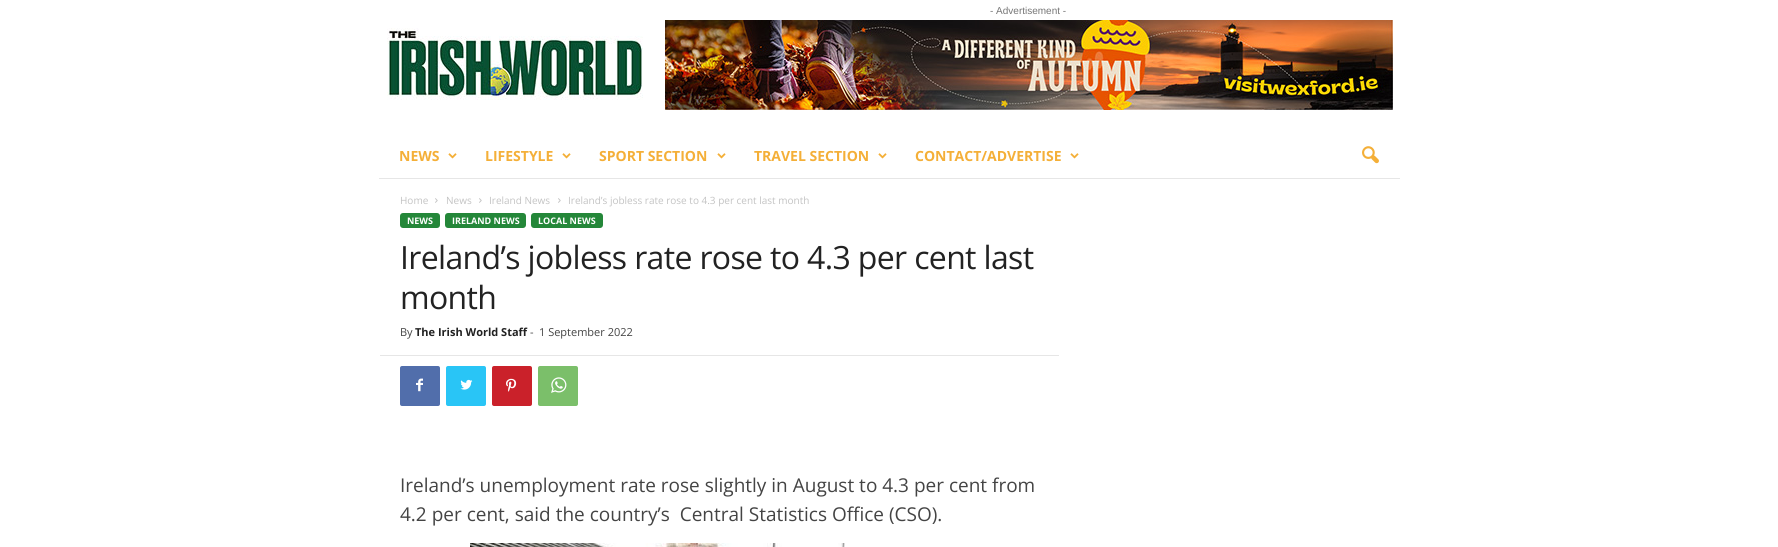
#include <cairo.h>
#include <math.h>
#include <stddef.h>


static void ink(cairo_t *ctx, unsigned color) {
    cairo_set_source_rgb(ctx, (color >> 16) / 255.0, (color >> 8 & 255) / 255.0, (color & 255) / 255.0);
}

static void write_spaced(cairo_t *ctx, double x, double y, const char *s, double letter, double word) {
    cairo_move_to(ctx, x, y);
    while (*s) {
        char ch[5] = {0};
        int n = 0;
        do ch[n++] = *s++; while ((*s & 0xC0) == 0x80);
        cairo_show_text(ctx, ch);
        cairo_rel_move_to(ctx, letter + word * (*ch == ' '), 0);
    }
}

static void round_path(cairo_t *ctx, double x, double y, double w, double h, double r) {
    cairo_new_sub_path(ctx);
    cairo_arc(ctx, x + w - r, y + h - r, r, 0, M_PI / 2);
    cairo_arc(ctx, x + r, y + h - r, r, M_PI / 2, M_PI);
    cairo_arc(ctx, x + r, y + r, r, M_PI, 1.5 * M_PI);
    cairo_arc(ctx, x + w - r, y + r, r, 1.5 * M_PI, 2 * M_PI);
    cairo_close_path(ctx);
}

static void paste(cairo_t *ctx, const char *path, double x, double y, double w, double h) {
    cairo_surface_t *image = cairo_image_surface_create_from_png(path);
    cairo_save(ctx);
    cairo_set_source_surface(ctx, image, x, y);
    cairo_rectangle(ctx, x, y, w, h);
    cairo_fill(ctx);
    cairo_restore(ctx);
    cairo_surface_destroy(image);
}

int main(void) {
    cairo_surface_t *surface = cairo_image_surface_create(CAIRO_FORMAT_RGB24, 1778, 547);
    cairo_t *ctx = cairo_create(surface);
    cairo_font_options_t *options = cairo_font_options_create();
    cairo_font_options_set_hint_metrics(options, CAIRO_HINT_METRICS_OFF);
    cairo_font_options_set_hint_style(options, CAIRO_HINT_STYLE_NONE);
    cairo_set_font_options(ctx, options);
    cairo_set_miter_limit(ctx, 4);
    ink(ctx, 0xFFFFFF);
    cairo_paint(ctx);
    cairo_select_font_face(ctx, "Liberation Sans", CAIRO_FONT_SLANT_NORMAL, CAIRO_FONT_WEIGHT_NORMAL);
    cairo_set_font_size(ctx, 10);
    ink(ctx, 0x767676);
    cairo_move_to(ctx, 990, 14);
    cairo_show_text(ctx, "- Advertisement -");
    paste(ctx, "media/1.png", 665, 20, 728, 90);
    paste(ctx, "media/2.png", 387, 28, 256, 72);
    ink(ctx, 0xE6E6E6);
    cairo_rectangle(ctx, 379, 178, 1021, 1);
    cairo_fill(ctx);
    cairo_select_font_face(ctx, "Open Sans", CAIRO_FONT_SLANT_NORMAL, CAIRO_FONT_WEIGHT_BOLD);
    cairo_set_font_size(ctx, 14);
    ink(ctx, 0xF4AF38);
    cairo_move_to(ctx, 399, 161);
    cairo_show_text(ctx, "NEWS");
    paste(ctx, "media/3.png", 448, 153, 9, 6);
    cairo_move_to(ctx, 485, 161);
    cairo_show_text(ctx, "LIFESTYLE");
    paste(ctx, "media/3.png", 562, 153, 9, 6);
    cairo_move_to(ctx, 599, 161);
    cairo_show_text(ctx, "SPORT SECTION");
    paste(ctx, "media/3.png", 717, 153, 9, 6);
    cairo_move_to(ctx, 754, 161);
    cairo_show_text(ctx, "TRAVEL SECTION");
    paste(ctx, "media/3.png", 878, 153, 9, 6);
    cairo_move_to(ctx, 915, 161);
    cairo_show_text(ctx, "CONTACT/ADVERTISE");
    paste(ctx, "media/3.png", 1070, 153, 9, 6);
    paste(ctx, "media/4.png", 1362, 146, 17, 18);
    cairo_select_font_face(ctx, "Open Sans", CAIRO_FONT_SLANT_NORMAL, CAIRO_FONT_WEIGHT_NORMAL);
    cairo_set_font_size(ctx, 10);
    ink(ctx, 0xC3C3C3);
    cairo_move_to(ctx, 400, 204);
    cairo_show_text(ctx, "Home");
    paste(ctx, "media/5.png", 435, 198, 3, 5);
    cairo_move_to(ctx, 446, 204);
    cairo_show_text(ctx, "News");
    paste(ctx, "media/5.png", 479, 198, 3, 5);
    cairo_move_to(ctx, 489, 204);
    cairo_show_text(ctx, "Ireland News");
    paste(ctx, "media/5.png", 558, 198, 3, 5);
    cairo_move_to(ctx, 568, 204);
    cairo_show_text(ctx, "Ireland’s jobless rate rose to 4.3 per cent last month");
    ink(ctx, 0x248739);
    round_path(ctx, 400, 213, 40, 15, 3);
    cairo_fill(ctx);
    cairo_select_font_face(ctx, "Open Sans", CAIRO_FONT_SLANT_NORMAL, CAIRO_FONT_WEIGHT_BOLD);
    cairo_set_font_size(ctx, 9);
    ink(ctx, 0xFFFFFF);
    cairo_move_to(ctx, 407, 224);
    cairo_show_text(ctx, "NEWS");
    ink(ctx, 0x248739);
    round_path(ctx, 445, 213, 81, 15, 3);
    cairo_fill(ctx);
    ink(ctx, 0xFFFFFF);
    cairo_move_to(ctx, 452, 224);
    cairo_show_text(ctx, "IRELAND NEWS");
    ink(ctx, 0x248739);
    round_path(ctx, 531, 213, 72, 15, 3);
    cairo_fill(ctx);
    ink(ctx, 0xFFFFFF);
    cairo_move_to(ctx, 538, 224);
    cairo_show_text(ctx, "LOCAL NEWS");
    cairo_select_font_face(ctx, "Open Sans", CAIRO_FONT_SLANT_NORMAL, CAIRO_FONT_WEIGHT_NORMAL);
    cairo_set_font_size(ctx, 32);
    ink(ctx, 0x222222);
    write_spaced(ctx, 400, 269, "Ireland’s jobless rate rose to 4.3 per cent last", -0.65, 0);
    write_spaced(ctx, 400, 309, "month", -0.65, 0);
    cairo_set_font_size(ctx, 11);
    ink(ctx, 0x444444);
    cairo_move_to(ctx, 400, 336);
    cairo_show_text(ctx, "By");
    cairo_select_font_face(ctx, "Open Sans", CAIRO_FONT_SLANT_NORMAL, CAIRO_FONT_WEIGHT_BOLD);
    ink(ctx, 0x222222);
    cairo_move_to(ctx, 415, 336);
    cairo_show_text(ctx, "The Irish World Staff");
    cairo_select_font_face(ctx, "Open Sans", CAIRO_FONT_SLANT_NORMAL, CAIRO_FONT_WEIGHT_NORMAL);
    ink(ctx, 0x444444);
    cairo_move_to(ctx, 530, 336);
    cairo_show_text(ctx, "-");
    cairo_move_to(ctx, 539, 336);
    cairo_show_text(ctx, "1 September 2022");
    ink(ctx, 0xE6E6E6);
    cairo_rectangle(ctx, 380, 355, 679, 1);
    cairo_fill(ctx);
    ink(ctx, 0x516EAB);
    round_path(ctx, 400, 366, 40, 40, 2);
    cairo_fill(ctx);
    paste(ctx, "media/6.png", 416, 378, 7, 14);
    ink(ctx, 0x29C5F6);
    round_path(ctx, 446, 366, 40, 40, 2);
    cairo_fill(ctx);
    paste(ctx, "media/7.png", 460, 379, 13, 11);
    ink(ctx, 0xCA212A);
    round_path(ctx, 492, 366, 40, 40, 2);
    cairo_fill(ctx);
    paste(ctx, "media/8.png", 506, 378, 11, 14);
    ink(ctx, 0x7BBF6A);
    round_path(ctx, 538, 366, 40, 40, 2);
    cairo_fill(ctx);
    paste(ctx, "media/9.png", 551, 377, 16, 16);
    cairo_set_font_size(ctx, 19);
    ink(ctx, 0x444444);
    cairo_move_to(ctx, 400, 492);
    cairo_show_text(ctx, "Ireland’s unemployment rate rose slightly in August to 4.3 per cent from");
    cairo_move_to(ctx, 400, 521);
    cairo_show_text(ctx, "4.2 per cent, said the country’s  Central Statistics Office (CSO).");
    paste(ctx, "media/10.png", 470, 543, 375, 4);
    cairo_surface_write_to_png(surface, "image.png");
    cairo_font_options_destroy(options);
    cairo_destroy(ctx);
    cairo_surface_destroy(surface);
    return 0;
}
